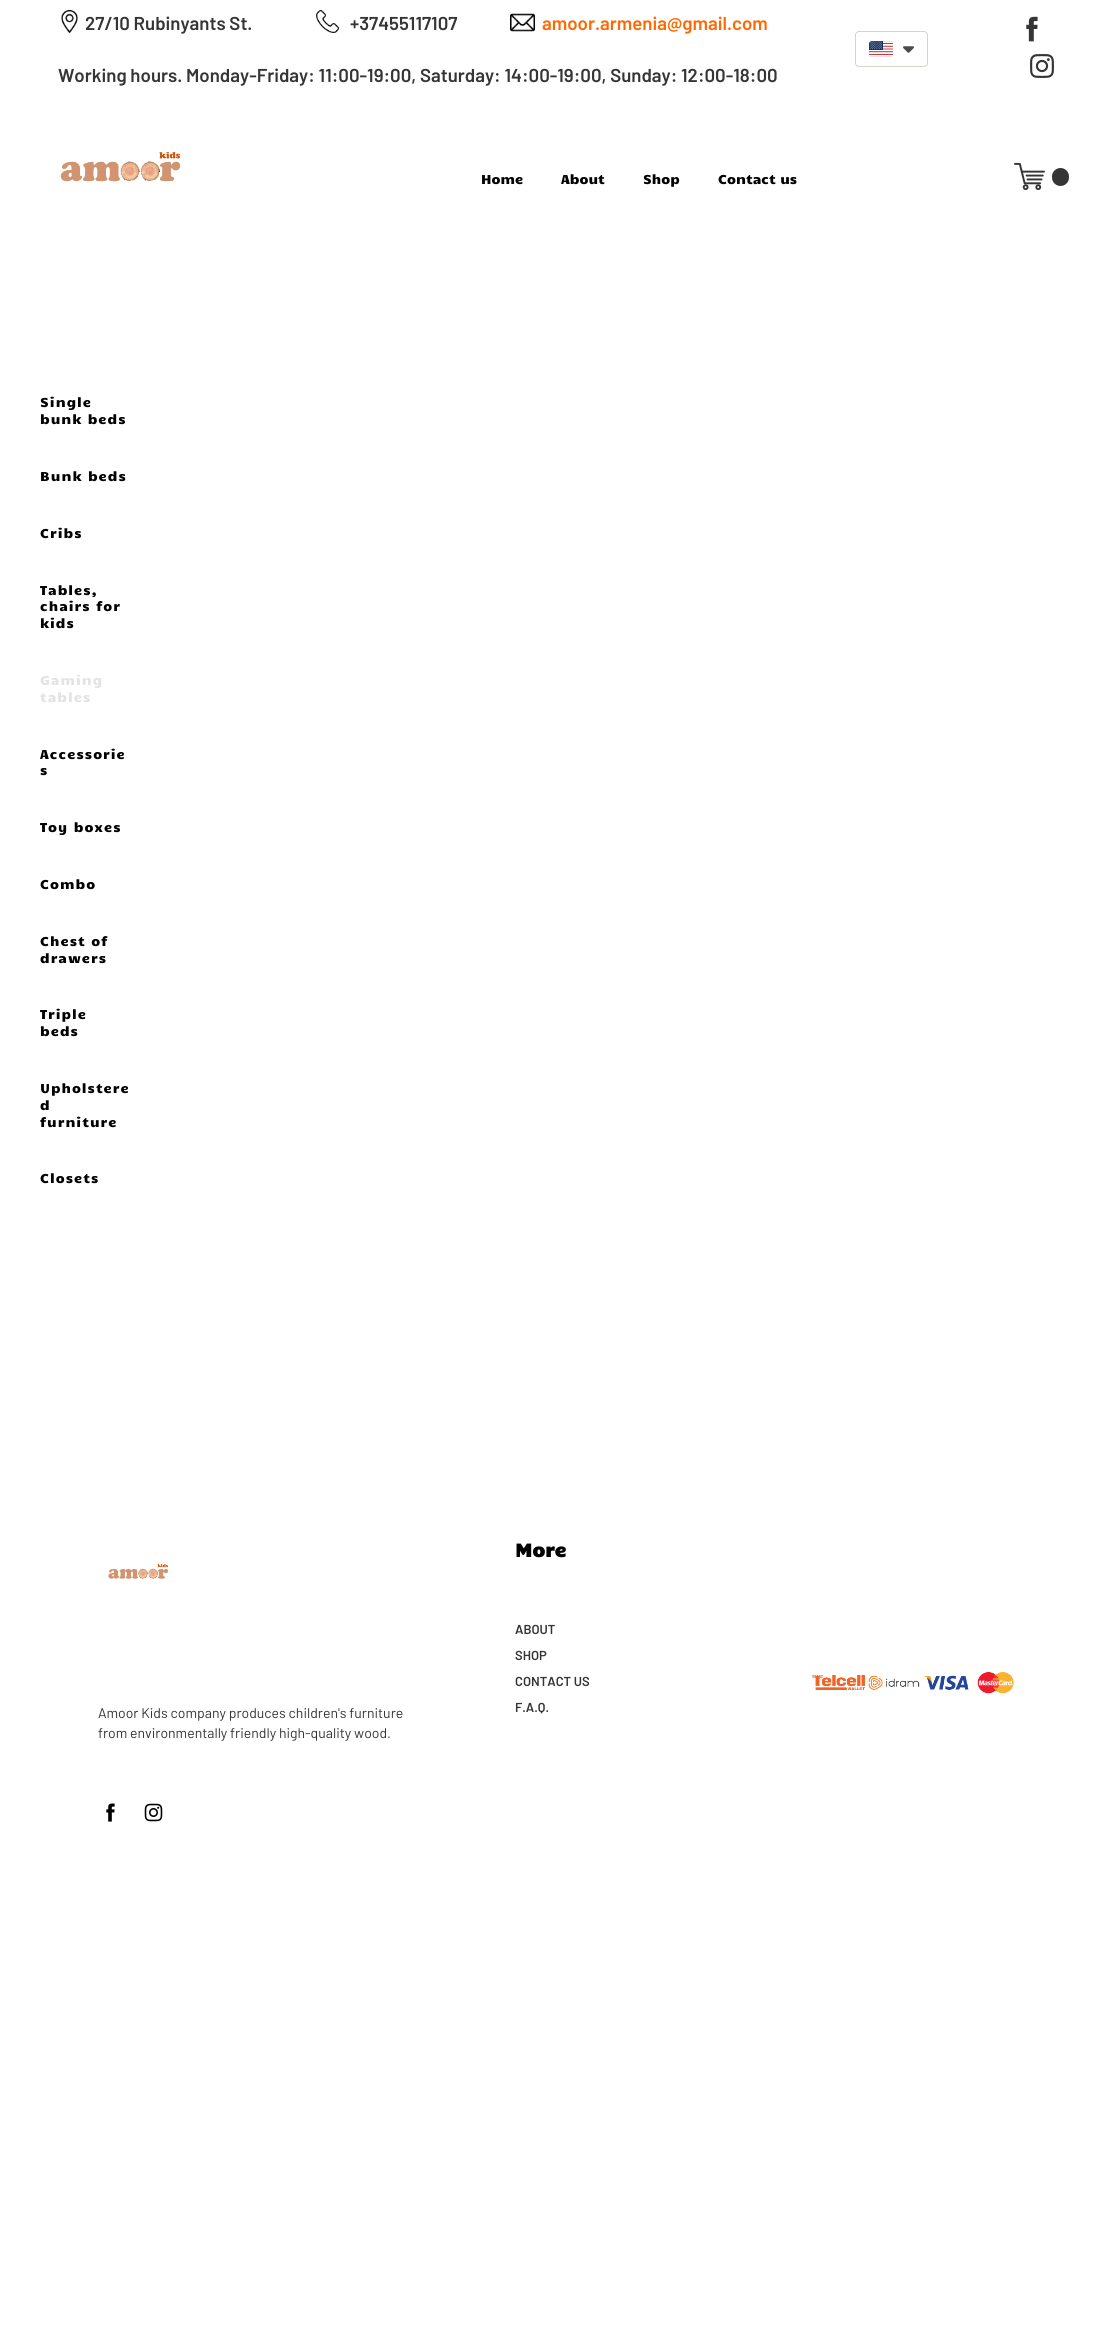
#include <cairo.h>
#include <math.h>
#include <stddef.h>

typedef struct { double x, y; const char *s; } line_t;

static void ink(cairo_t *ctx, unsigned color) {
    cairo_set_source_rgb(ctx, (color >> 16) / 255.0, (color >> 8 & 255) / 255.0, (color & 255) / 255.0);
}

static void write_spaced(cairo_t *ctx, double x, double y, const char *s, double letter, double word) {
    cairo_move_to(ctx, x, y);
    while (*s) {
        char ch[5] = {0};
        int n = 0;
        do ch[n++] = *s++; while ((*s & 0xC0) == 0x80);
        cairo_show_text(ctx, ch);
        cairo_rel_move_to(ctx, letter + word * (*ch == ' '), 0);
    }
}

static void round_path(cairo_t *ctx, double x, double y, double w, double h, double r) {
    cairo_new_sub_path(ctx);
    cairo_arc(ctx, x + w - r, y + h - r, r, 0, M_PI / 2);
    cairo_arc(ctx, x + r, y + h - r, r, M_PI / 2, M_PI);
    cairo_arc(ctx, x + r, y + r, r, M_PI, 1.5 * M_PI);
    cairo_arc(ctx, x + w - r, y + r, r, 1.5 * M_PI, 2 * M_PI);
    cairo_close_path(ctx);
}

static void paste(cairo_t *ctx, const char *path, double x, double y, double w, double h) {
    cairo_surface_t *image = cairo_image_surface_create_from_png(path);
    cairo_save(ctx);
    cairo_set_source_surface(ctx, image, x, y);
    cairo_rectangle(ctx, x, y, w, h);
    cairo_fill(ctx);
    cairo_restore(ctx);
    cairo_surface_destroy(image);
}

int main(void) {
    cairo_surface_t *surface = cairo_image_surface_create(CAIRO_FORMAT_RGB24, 1116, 2350);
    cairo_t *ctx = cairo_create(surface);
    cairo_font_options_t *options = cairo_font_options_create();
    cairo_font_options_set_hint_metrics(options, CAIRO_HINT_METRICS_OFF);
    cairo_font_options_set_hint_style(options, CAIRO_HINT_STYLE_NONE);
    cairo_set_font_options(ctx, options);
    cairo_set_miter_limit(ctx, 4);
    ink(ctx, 0xFFFFFF);
    cairo_paint(ctx);
    paste(ctx, "media/1.png", 61, 10, 17, 23);
    cairo_select_font_face(ctx, "Barlow SemiBold", CAIRO_FONT_SLANT_NORMAL, CAIRO_FONT_WEIGHT_NORMAL);
    cairo_set_font_size(ctx, 18.65);
    ink(ctx, 0x353535);
    cairo_move_to(ctx, 85, 30);
    cairo_show_text(ctx, "27/10 Rubinyants St.");
    paste(ctx, "media/2.png", 316, 10, 23, 23);
    cairo_move_to(ctx, 350, 30);
    cairo_show_text(ctx, "+37455117107");
    paste(ctx, "media/3.png", 510, 13, 25, 19);
    ink(ctx, 0xFF6700);
    cairo_move_to(ctx, 542, 30);
    cairo_show_text(ctx, "amoor.armenia@gmail.com");
    ink(ctx, 0x353535);
    cairo_move_to(ctx, 58, 82);
    cairo_show_text(ctx, "Working hours. Monday-Friday: 11:00-19:00, Saturday: 14:00-19:00, Sunday: 12:00-18:00");
    round_path(ctx, 855.5, 31.5, 72, 35, 3.5);
    ink(ctx, 0xD4D4C9);
    cairo_set_line_width(ctx, 1);
    cairo_stroke(ctx);
    paste(ctx, "media/4.png", 869, 41, 24, 16);
    paste(ctx, "media/5.png", 903, 46, 11, 7);
    paste(ctx, "media/6.png", 1026, 16, 12, 26);
    paste(ctx, "media/7.png", 1030, 54, 24, 24);
    paste(ctx, "media/8.png", 60, 152, 121, 30);
    cairo_select_font_face(ctx, "Candal", CAIRO_FONT_SLANT_NORMAL, CAIRO_FONT_WEIGHT_NORMAL);
    cairo_set_font_size(ctx, 13);
    ink(ctx, 0x000000);
    {
        static const line_t items[] = {
            {481, 184, "Home"},
            {561, 184, "About"},
            {643, 184, "Shop"},
            {718, 184, "Contact us"},
        };
        for (size_t i = 0; i < sizeof items / sizeof *items; i++) {
            cairo_move_to(ctx, items[i].x, items[i].y);
            cairo_show_text(ctx, items[i].s);
        }
    }
    paste(ctx, "media/9.png", 1014, 162, 31, 29);
    ink(ctx, 0x353535);
    round_path(ctx, 1052, 168, 17, 18, 8.5);
    cairo_fill(ctx);
    ink(ctx, 0x000000);
    {
        static const line_t items[] = {
            {40, 407, "Single"},
            {40, 424, "bunk beds"},
            {40, 481, "Bunk beds"},
            {40, 538, "Cribs"},
            {40, 595, "Tables,"},
            {40, 611, "chairs for"},
            {40, 628, "kids"},
        };
        for (size_t i = 0; i < sizeof items / sizeof *items; i++) {
            write_spaced(ctx, items[i].x, items[i].y, items[i].s, 1, 0);
        }
    }
    ink(ctx, 0xE3E3E3);
    write_spaced(ctx, 40, 685, "Gaming", 1, 0);
    write_spaced(ctx, 40, 702, "tables", 1, 0);
    ink(ctx, 0x000000);
    {
        static const line_t items[] = {
            {40, 759, "Accessorie"},
            {40, 775, "s"},
            {40, 832, "Toy boxes"},
            {40, 889, "Combo"},
            {40, 946, "Chest of"},
            {40, 963, "drawers"},
            {40, 1019, "Triple"},
            {40, 1036, "beds"},
            {40, 1093, "Upholstere"},
            {40, 1110, "d"},
            {40, 1127, "furniture"},
            {40, 1183, "Closets"},
        };
        for (size_t i = 0; i < sizeof items / sizeof *items; i++) {
            write_spaced(ctx, items[i].x, items[i].y, items[i].s, 1, 0);
        }
    }
    cairo_select_font_face(ctx, "Candal", CAIRO_FONT_SLANT_NORMAL, CAIRO_FONT_WEIGHT_BOLD);
    cairo_set_font_size(ctx, 18.65);
    cairo_move_to(ctx, 515, 1557);
    cairo_show_text(ctx, "More");
    cairo_select_font_face(ctx, "Barlow SemiBold", CAIRO_FONT_SLANT_NORMAL, CAIRO_FONT_WEIGHT_NORMAL);
    cairo_set_font_size(ctx, 13);
    ink(ctx, 0x353535);
    {
        static const line_t items[] = {
            {515, 1634, "ABOUT"},
            {515, 1660, "SHOP"},
            {515, 1686, "CONTACT US"},
            {515, 1712, "F.A.Q."},
        };
        for (size_t i = 0; i < sizeof items / sizeof *items; i++) {
            cairo_move_to(ctx, items[i].x, items[i].y);
            cairo_show_text(ctx, items[i].s);
        }
    }
    paste(ctx, "media/10.png", 812, 1671, 202, 23);
    paste(ctx, "media/11.png", 108, 1563, 60, 16);
    cairo_select_font_face(ctx, "Barlow", CAIRO_FONT_SLANT_NORMAL, CAIRO_FONT_WEIGHT_NORMAL);
    cairo_set_font_size(ctx, 14);
    cairo_move_to(ctx, 98, 1718);
    cairo_show_text(ctx, "Amoor Kids company produces children's furniture");
    cairo_move_to(ctx, 98, 1738);
    cairo_show_text(ctx, "from environmentally friendly high-quality wood.");
    paste(ctx, "media/12.png", 106, 1803, 9, 19);
    paste(ctx, "media/13.png", 144, 1803, 19, 19);
    cairo_surface_write_to_png(surface, "image.png");
    cairo_font_options_destroy(options);
    cairo_destroy(ctx);
    cairo_surface_destroy(surface);
    return 0;
}
